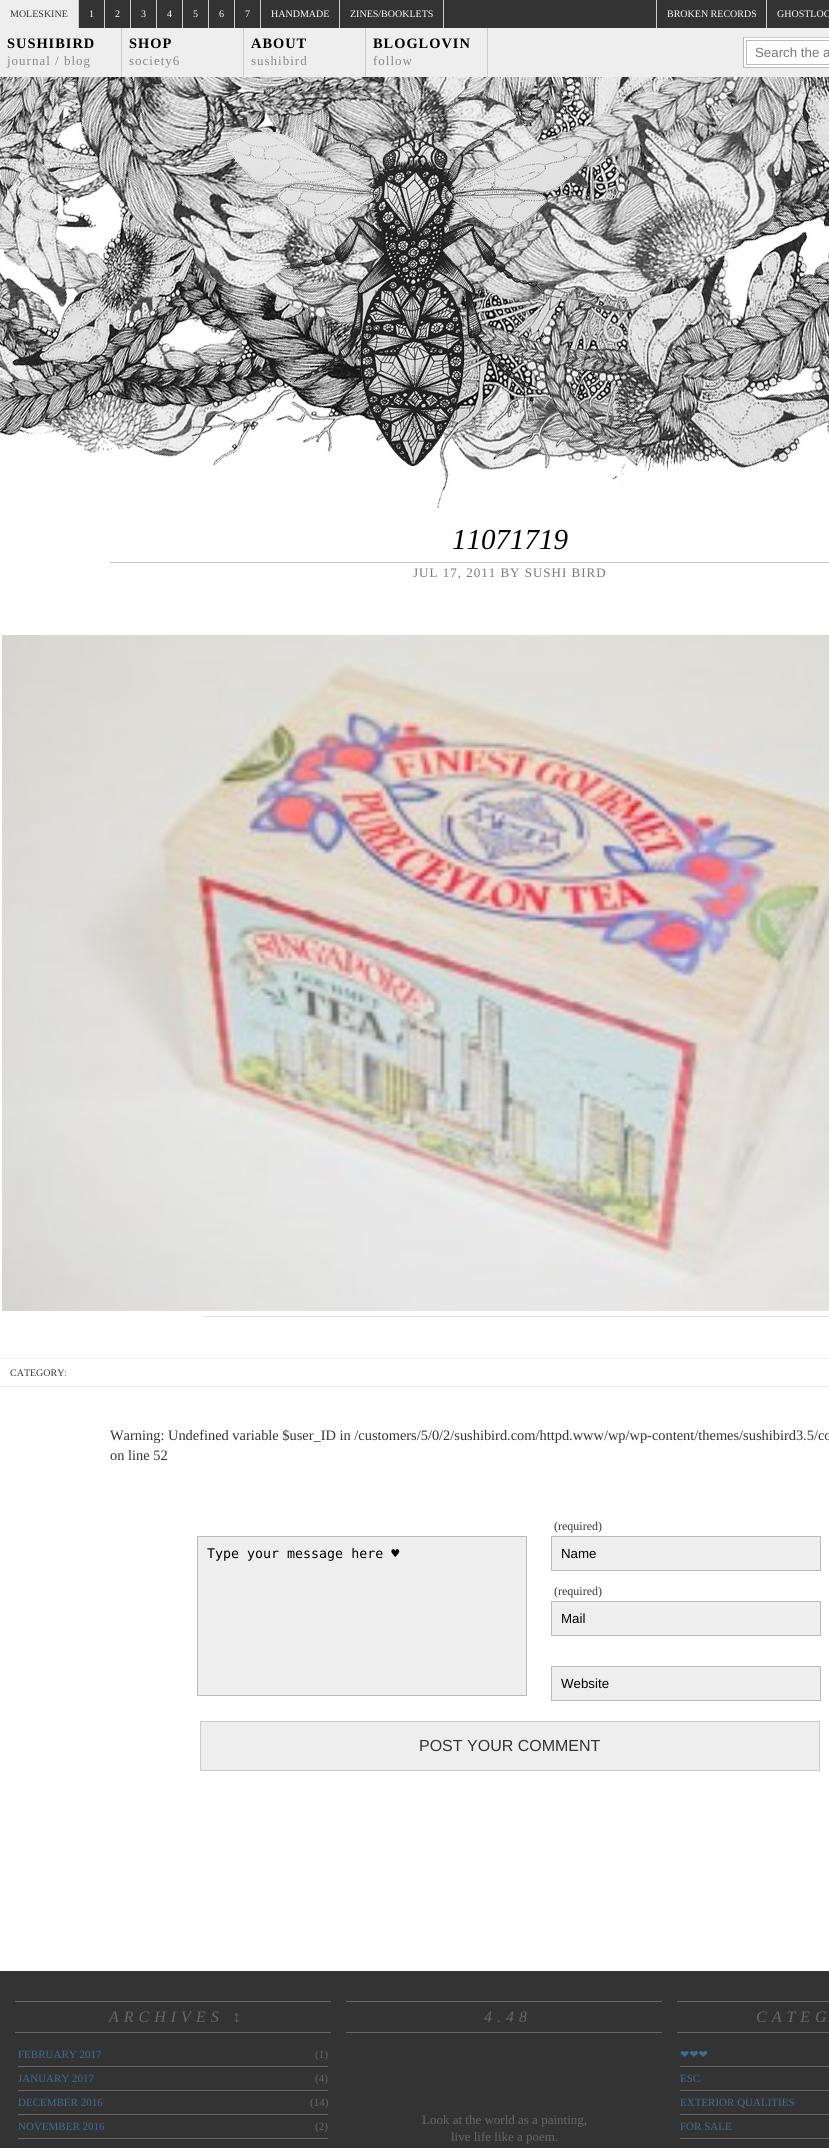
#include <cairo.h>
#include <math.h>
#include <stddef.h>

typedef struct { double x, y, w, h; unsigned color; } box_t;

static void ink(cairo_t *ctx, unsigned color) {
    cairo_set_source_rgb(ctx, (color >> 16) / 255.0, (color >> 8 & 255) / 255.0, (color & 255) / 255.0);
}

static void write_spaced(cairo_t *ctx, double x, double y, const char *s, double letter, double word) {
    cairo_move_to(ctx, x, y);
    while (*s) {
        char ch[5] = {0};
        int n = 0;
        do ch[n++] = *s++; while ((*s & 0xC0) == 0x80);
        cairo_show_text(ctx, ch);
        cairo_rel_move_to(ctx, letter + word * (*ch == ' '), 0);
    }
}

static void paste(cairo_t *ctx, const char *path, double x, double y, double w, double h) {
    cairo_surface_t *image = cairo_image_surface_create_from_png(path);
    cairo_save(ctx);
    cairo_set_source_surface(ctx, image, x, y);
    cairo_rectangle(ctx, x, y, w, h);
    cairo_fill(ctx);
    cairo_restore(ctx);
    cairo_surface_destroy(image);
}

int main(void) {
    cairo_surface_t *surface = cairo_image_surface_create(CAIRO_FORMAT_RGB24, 829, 2148);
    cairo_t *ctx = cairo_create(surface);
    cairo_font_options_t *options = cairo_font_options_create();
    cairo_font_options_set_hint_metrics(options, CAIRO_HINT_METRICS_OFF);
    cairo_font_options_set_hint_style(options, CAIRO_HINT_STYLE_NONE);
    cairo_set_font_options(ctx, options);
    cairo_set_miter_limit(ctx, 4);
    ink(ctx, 0xFFFFFF);
    cairo_paint(ctx);
    paste(ctx, "media/1.png", 0, 77, 829, 432);
    {
        static const box_t items[] = {
            {79, 0, 750, 28, 0x333333},
            {78, 0, 1, 28, 0xCCCCCC},
            {0, 0, 78, 28, 0xEEEEEE},
        };
        for (size_t i = 0; i < sizeof items / sizeof *items; i++) {
            ink(ctx, items[i].color);
            cairo_rectangle(ctx, items[i].x, items[i].y, items[i].w, items[i].h);
            cairo_fill(ctx);
        }
    }
    cairo_select_font_face(ctx, "Liberation Serif", CAIRO_FONT_SLANT_NORMAL, CAIRO_FONT_WEIGHT_NORMAL);
    cairo_set_font_size(ctx, 10);
    ink(ctx, 0x333333);
    cairo_move_to(ctx, 10, 17);
    cairo_show_text(ctx, "MOLESKINE");
    ink(ctx, 0xCCCCCC);
    cairo_rectangle(ctx, 104, 0, 1, 28);
    cairo_fill(ctx);
    ink(ctx, 0xFFFFFF);
    cairo_move_to(ctx, 89, 17);
    cairo_show_text(ctx, "1");
    ink(ctx, 0xCCCCCC);
    cairo_rectangle(ctx, 130, 0, 1, 28);
    cairo_fill(ctx);
    ink(ctx, 0xFFFFFF);
    cairo_move_to(ctx, 115, 17);
    cairo_show_text(ctx, "2");
    ink(ctx, 0xCCCCCC);
    cairo_rectangle(ctx, 156, 0, 1, 28);
    cairo_fill(ctx);
    ink(ctx, 0xFFFFFF);
    cairo_move_to(ctx, 141, 17);
    cairo_show_text(ctx, "3");
    ink(ctx, 0xCCCCCC);
    cairo_rectangle(ctx, 182, 0, 1, 28);
    cairo_fill(ctx);
    ink(ctx, 0xFFFFFF);
    cairo_move_to(ctx, 167, 17);
    cairo_show_text(ctx, "4");
    ink(ctx, 0xCCCCCC);
    cairo_rectangle(ctx, 208, 0, 1, 28);
    cairo_fill(ctx);
    ink(ctx, 0xFFFFFF);
    cairo_move_to(ctx, 193, 17);
    cairo_show_text(ctx, "5");
    ink(ctx, 0xCCCCCC);
    cairo_rectangle(ctx, 234, 0, 1, 28);
    cairo_fill(ctx);
    ink(ctx, 0xFFFFFF);
    cairo_move_to(ctx, 219, 17);
    cairo_show_text(ctx, "6");
    ink(ctx, 0xCCCCCC);
    cairo_rectangle(ctx, 260, 0, 1, 28);
    cairo_fill(ctx);
    ink(ctx, 0xFFFFFF);
    cairo_move_to(ctx, 245, 17);
    cairo_show_text(ctx, "7");
    ink(ctx, 0xCCCCCC);
    cairo_rectangle(ctx, 339, 0, 1, 28);
    cairo_fill(ctx);
    ink(ctx, 0xFFFFFF);
    cairo_move_to(ctx, 271, 17);
    cairo_show_text(ctx, "HANDMADE");
    ink(ctx, 0xCCCCCC);
    cairo_rectangle(ctx, 443, 0, 1, 28);
    cairo_fill(ctx);
    ink(ctx, 0xFFFFFF);
    cairo_move_to(ctx, 350, 17);
    cairo_show_text(ctx, "ZINES/BOOKLETS");
    ink(ctx, 0xCCCCCC);
    cairo_rectangle(ctx, 656, 0, 1, 28);
    cairo_fill(ctx);
    ink(ctx, 0xFFFFFF);
    cairo_move_to(ctx, 667, 17);
    cairo_show_text(ctx, "BROKEN RECORDS");
    ink(ctx, 0xCCCCCC);
    cairo_rectangle(ctx, 766, 0, 1, 28);
    cairo_fill(ctx);
    ink(ctx, 0xFFFFFF);
    cairo_move_to(ctx, 777, 17);
    cairo_show_text(ctx, "GHOSTLOC");
    ink(ctx, 0xEEEEEE);
    cairo_rectangle(ctx, 0, 28, 829, 49);
    cairo_fill(ctx);
    ink(ctx, 0xCCCCCC);
    cairo_rectangle(ctx, 121, 28, 1, 49);
    cairo_fill(ctx);
    cairo_select_font_face(ctx, "Liberation Serif", CAIRO_FONT_SLANT_NORMAL, CAIRO_FONT_WEIGHT_BOLD);
    cairo_set_font_size(ctx, 14.4);
    ink(ctx, 0x000000);
    write_spaced(ctx, 7, 48, "SUSHIBIRD", 1, 0);
    cairo_select_font_face(ctx, "Liberation Serif", CAIRO_FONT_SLANT_NORMAL, CAIRO_FONT_WEIGHT_NORMAL);
    cairo_set_font_size(ctx, 13);
    ink(ctx, 0x888888);
    write_spaced(ctx, 7, 65, "journal / blog", 1, 0);
    ink(ctx, 0xCCCCCC);
    cairo_rectangle(ctx, 243, 28, 1, 49);
    cairo_fill(ctx);
    cairo_select_font_face(ctx, "Liberation Serif", CAIRO_FONT_SLANT_NORMAL, CAIRO_FONT_WEIGHT_BOLD);
    cairo_set_font_size(ctx, 14.4);
    ink(ctx, 0x000000);
    write_spaced(ctx, 129, 48, "SHOP", 1, 0);
    cairo_select_font_face(ctx, "Liberation Serif", CAIRO_FONT_SLANT_NORMAL, CAIRO_FONT_WEIGHT_NORMAL);
    cairo_set_font_size(ctx, 13);
    ink(ctx, 0x888888);
    write_spaced(ctx, 129, 65, "society6", 1, 0);
    ink(ctx, 0xCCCCCC);
    cairo_rectangle(ctx, 365, 28, 1, 49);
    cairo_fill(ctx);
    cairo_select_font_face(ctx, "Liberation Serif", CAIRO_FONT_SLANT_NORMAL, CAIRO_FONT_WEIGHT_BOLD);
    cairo_set_font_size(ctx, 14.4);
    ink(ctx, 0x000000);
    write_spaced(ctx, 251, 48, "ABOUT", 1, 0);
    cairo_select_font_face(ctx, "Liberation Serif", CAIRO_FONT_SLANT_NORMAL, CAIRO_FONT_WEIGHT_NORMAL);
    cairo_set_font_size(ctx, 13);
    ink(ctx, 0x888888);
    write_spaced(ctx, 251, 65, "sushibird", 1, 0);
    ink(ctx, 0xCCCCCC);
    cairo_rectangle(ctx, 487, 28, 1, 49);
    cairo_fill(ctx);
    cairo_select_font_face(ctx, "Liberation Serif", CAIRO_FONT_SLANT_NORMAL, CAIRO_FONT_WEIGHT_BOLD);
    cairo_set_font_size(ctx, 14.4);
    ink(ctx, 0x000000);
    write_spaced(ctx, 373, 48, "BLOGLOVIN", 1, 0);
    cairo_select_font_face(ctx, "Liberation Serif", CAIRO_FONT_SLANT_NORMAL, CAIRO_FONT_WEIGHT_NORMAL);
    cairo_set_font_size(ctx, 13);
    ink(ctx, 0x888888);
    write_spaced(ctx, 373, 65, "follow", 1, 0);
    {
        static const box_t items[] = {
            {744, 38, 85, 29, 0xFFFFFF},
            {743, 37, 86, 1, 0xCCCCCC},
            {743, 67, 86, 1, 0xBBBBBB},
            {743, 37, 1, 31, 0xBBBBBB},
        };
        for (size_t i = 0; i < sizeof items / sizeof *items; i++) {
            ink(ctx, items[i].color);
            cairo_rectangle(ctx, items[i].x, items[i].y, items[i].w, items[i].h);
            cairo_fill(ctx);
        }
    }
    cairo_rectangle(ctx, 746.5, 40.5, 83, 24);
    cairo_set_line_width(ctx, 1);
    cairo_stroke(ctx);
    cairo_select_font_face(ctx, "Liberation Sans", CAIRO_FONT_SLANT_NORMAL, CAIRO_FONT_WEIGHT_NORMAL);
    cairo_set_font_size(ctx, 13.3);
    ink(ctx, 0x777777);
    cairo_move_to(ctx, 755, 57);
    cairo_show_text(ctx, "Search the a");
    cairo_select_font_face(ctx, "Liberation Serif", CAIRO_FONT_SLANT_ITALIC, CAIRO_FONT_WEIGHT_NORMAL);
    cairo_set_font_size(ctx, 29);
    ink(ctx, 0x000000);
    cairo_move_to(ctx, 452, 549);
    cairo_show_text(ctx, "11071719");
    ink(ctx, 0xCCCCCC);
    cairo_rectangle(ctx, 110, 562, 719, 1);
    cairo_fill(ctx);
    cairo_select_font_face(ctx, "Liberation Serif", CAIRO_FONT_SLANT_NORMAL, CAIRO_FONT_WEIGHT_NORMAL);
    cairo_set_font_size(ctx, 13);
    ink(ctx, 0x777777);
    write_spaced(ctx, 413, 577, "JUL 17, 2011 BY SUSHI BIRD", 1, 0);
    paste(ctx, "media/2.png", 2, 635, 827, 676);
    {
        static const box_t items[] = {
            {203, 1316, 626, 1, 0xDDDDDD},
            {0, 1358, 829, 1, 0xEEEEEE},
            {0, 1386, 829, 1, 0xEEEEEE},
        };
        for (size_t i = 0; i < sizeof items / sizeof *items; i++) {
            ink(ctx, items[i].color);
            cairo_rectangle(ctx, items[i].x, items[i].y, items[i].w, items[i].h);
            cairo_fill(ctx);
        }
    }
    cairo_set_font_size(ctx, 10);
    ink(ctx, 0x333333);
    cairo_move_to(ctx, 10, 1376);
    cairo_show_text(ctx, "CATEGORY:");
    cairo_set_font_size(ctx, 14.4);
    cairo_move_to(ctx, 110, 1440);
    cairo_show_text(ctx, "Warning: Undefined variable $user_ID in /customers/5/0/2/sushibird.com/httpd.www/wp/wp-content/themes/sushibird3.5/co");
    cairo_move_to(ctx, 110, 1460);
    cairo_show_text(ctx, "on line 52");
    ink(ctx, 0xEEEEEE);
    cairo_rectangle(ctx, 197.5, 1536.5, 329, 159);
    cairo_fill_preserve(ctx);
    ink(ctx, 0xBBBBBB);
    cairo_stroke(ctx);
    cairo_select_font_face(ctx, "DejaVu Sans Mono", CAIRO_FONT_SLANT_NORMAL, CAIRO_FONT_WEIGHT_NORMAL);
    cairo_set_font_size(ctx, 13.3);
    ink(ctx, 0x000000);
    cairo_move_to(ctx, 207, 1558);
    cairo_show_text(ctx, "Type your message here ♥");
    cairo_select_font_face(ctx, "Liberation Serif", CAIRO_FONT_SLANT_NORMAL, CAIRO_FONT_WEIGHT_NORMAL);
    cairo_set_font_size(ctx, 12);
    ink(ctx, 0x333333);
    cairo_move_to(ctx, 554, 1530);
    cairo_show_text(ctx, "(required)");
    ink(ctx, 0xEEEEEE);
    cairo_rectangle(ctx, 551.5, 1536.5, 269, 34);
    cairo_fill_preserve(ctx);
    ink(ctx, 0xBBBBBB);
    cairo_stroke(ctx);
    cairo_select_font_face(ctx, "Liberation Sans", CAIRO_FONT_SLANT_NORMAL, CAIRO_FONT_WEIGHT_NORMAL);
    cairo_set_font_size(ctx, 13.3);
    ink(ctx, 0x000000);
    cairo_move_to(ctx, 561, 1558);
    cairo_show_text(ctx, "Name");
    cairo_select_font_face(ctx, "Liberation Serif", CAIRO_FONT_SLANT_NORMAL, CAIRO_FONT_WEIGHT_NORMAL);
    cairo_set_font_size(ctx, 12);
    ink(ctx, 0x333333);
    cairo_move_to(ctx, 554, 1595);
    cairo_show_text(ctx, "(required)");
    ink(ctx, 0xEEEEEE);
    cairo_rectangle(ctx, 551.5, 1601.5, 269, 34);
    cairo_fill_preserve(ctx);
    ink(ctx, 0xBBBBBB);
    cairo_stroke(ctx);
    cairo_select_font_face(ctx, "Liberation Sans", CAIRO_FONT_SLANT_NORMAL, CAIRO_FONT_WEIGHT_NORMAL);
    cairo_set_font_size(ctx, 13.3);
    ink(ctx, 0x000000);
    cairo_move_to(ctx, 561, 1623);
    cairo_show_text(ctx, "Mail");
    ink(ctx, 0xEEEEEE);
    cairo_rectangle(ctx, 551.5, 1666.5, 269, 34);
    cairo_fill_preserve(ctx);
    ink(ctx, 0xBBBBBB);
    cairo_stroke(ctx);
    ink(ctx, 0x000000);
    cairo_move_to(ctx, 561, 1688);
    cairo_show_text(ctx, "Website");
    ink(ctx, 0xEEEEEE);
    cairo_rectangle(ctx, 200.5, 1721.5, 619, 49);
    cairo_fill_preserve(ctx);
    ink(ctx, 0xCCCCCC);
    cairo_stroke(ctx);
    cairo_set_font_size(ctx, 16);
    ink(ctx, 0x333333);
    cairo_move_to(ctx, 419, 1751);
    cairo_show_text(ctx, "POST YOUR COMMENT");
    {
        static const box_t items[] = {
            {0, 1971, 829, 177, 0x333333},
            {15, 2001, 316, 1, 0x666666},
            {15, 2032, 316, 1, 0x666666},
        };
        for (size_t i = 0; i < sizeof items / sizeof *items; i++) {
            ink(ctx, items[i].color);
            cairo_rectangle(ctx, items[i].x, items[i].y, items[i].w, items[i].h);
            cairo_fill(ctx);
        }
    }
    cairo_select_font_face(ctx, "Liberation Serif", CAIRO_FONT_SLANT_ITALIC, CAIRO_FONT_WEIGHT_NORMAL);
    write_spaced(ctx, 109, 2022, "ARCHIVES ↕", 5, 0);
    cairo_rectangle(ctx, 18, 2066, 310, 1);
    cairo_fill(ctx);
    cairo_select_font_face(ctx, "Liberation Serif", CAIRO_FONT_SLANT_NORMAL, CAIRO_FONT_WEIGHT_NORMAL);
    cairo_set_font_size(ctx, 11);
    ink(ctx, 0x3C6C92);
    cairo_move_to(ctx, 18, 2058);
    cairo_show_text(ctx, "FEBRUARY 2017");
    ink(ctx, 0x666666);
    cairo_move_to(ctx, 315, 2058);
    cairo_show_text(ctx, "(1)");
    cairo_rectangle(ctx, 18, 2090, 310, 1);
    cairo_fill(ctx);
    ink(ctx, 0x3C6C92);
    cairo_move_to(ctx, 18, 2082);
    cairo_show_text(ctx, "JANUARY 2017");
    ink(ctx, 0x666666);
    cairo_move_to(ctx, 315, 2082);
    cairo_show_text(ctx, "(4)");
    cairo_rectangle(ctx, 18, 2114, 310, 1);
    cairo_fill(ctx);
    ink(ctx, 0x3C6C92);
    cairo_move_to(ctx, 18, 2106);
    cairo_show_text(ctx, "DECEMBER 2016");
    ink(ctx, 0x666666);
    cairo_move_to(ctx, 310, 2106);
    cairo_show_text(ctx, "(14)");
    cairo_rectangle(ctx, 18, 2138, 310, 1);
    cairo_fill(ctx);
    ink(ctx, 0x3C6C92);
    cairo_move_to(ctx, 18, 2130);
    cairo_show_text(ctx, "NOVEMBER 2016");
    ink(ctx, 0x666666);
    cairo_move_to(ctx, 315, 2130);
    cairo_show_text(ctx, "(2)");
    cairo_rectangle(ctx, 346, 2001, 316, 1);
    cairo_fill(ctx);
    cairo_rectangle(ctx, 346, 2032, 316, 1);
    cairo_fill(ctx);
    cairo_select_font_face(ctx, "Liberation Serif", CAIRO_FONT_SLANT_ITALIC, CAIRO_FONT_WEIGHT_NORMAL);
    cairo_set_font_size(ctx, 16);
    write_spaced(ctx, 484, 2022, "4.48", 5, 0);
    cairo_select_font_face(ctx, "Liberation Serif", CAIRO_FONT_SLANT_NORMAL, CAIRO_FONT_WEIGHT_NORMAL);
    cairo_set_font_size(ctx, 13);
    cairo_move_to(ctx, 422, 2124);
    cairo_show_text(ctx, "Look at the world as a painting,");
    cairo_move_to(ctx, 451, 2141);
    cairo_show_text(ctx, "live life like a poem.");
    cairo_rectangle(ctx, 677, 2001, 152, 1);
    cairo_fill(ctx);
    cairo_rectangle(ctx, 677, 2032, 152, 1);
    cairo_fill(ctx);
    cairo_select_font_face(ctx, "Liberation Serif", CAIRO_FONT_SLANT_ITALIC, CAIRO_FONT_WEIGHT_NORMAL);
    cairo_set_font_size(ctx, 16);
    write_spaced(ctx, 756, 2022, "CATEG", 5, 0);
    cairo_rectangle(ctx, 680, 2066, 149, 1);
    cairo_fill(ctx);
    cairo_select_font_face(ctx, "DejaVu Sans", CAIRO_FONT_SLANT_NORMAL, CAIRO_FONT_WEIGHT_NORMAL);
    cairo_set_font_size(ctx, 11);
    ink(ctx, 0x3C6C92);
    cairo_move_to(ctx, 680, 2058);
    cairo_show_text(ctx, "❤❤❤");
    ink(ctx, 0x666666);
    cairo_rectangle(ctx, 680, 2090, 149, 1);
    cairo_fill(ctx);
    cairo_select_font_face(ctx, "Liberation Serif", CAIRO_FONT_SLANT_NORMAL, CAIRO_FONT_WEIGHT_NORMAL);
    ink(ctx, 0x3C6C92);
    cairo_move_to(ctx, 680, 2082);
    cairo_show_text(ctx, "ESC");
    ink(ctx, 0x666666);
    cairo_rectangle(ctx, 680, 2114, 149, 1);
    cairo_fill(ctx);
    ink(ctx, 0x3C6C92);
    cairo_move_to(ctx, 680, 2106);
    cairo_show_text(ctx, "EXTERIOR QUALITIES");
    ink(ctx, 0x666666);
    cairo_rectangle(ctx, 680, 2138, 149, 1);
    cairo_fill(ctx);
    ink(ctx, 0x3C6C92);
    cairo_move_to(ctx, 680, 2130);
    cairo_show_text(ctx, "FOR SALE");
    cairo_surface_write_to_png(surface, "image.png");
    cairo_font_options_destroy(options);
    cairo_destroy(ctx);
    cairo_surface_destroy(surface);
    return 0;
}
